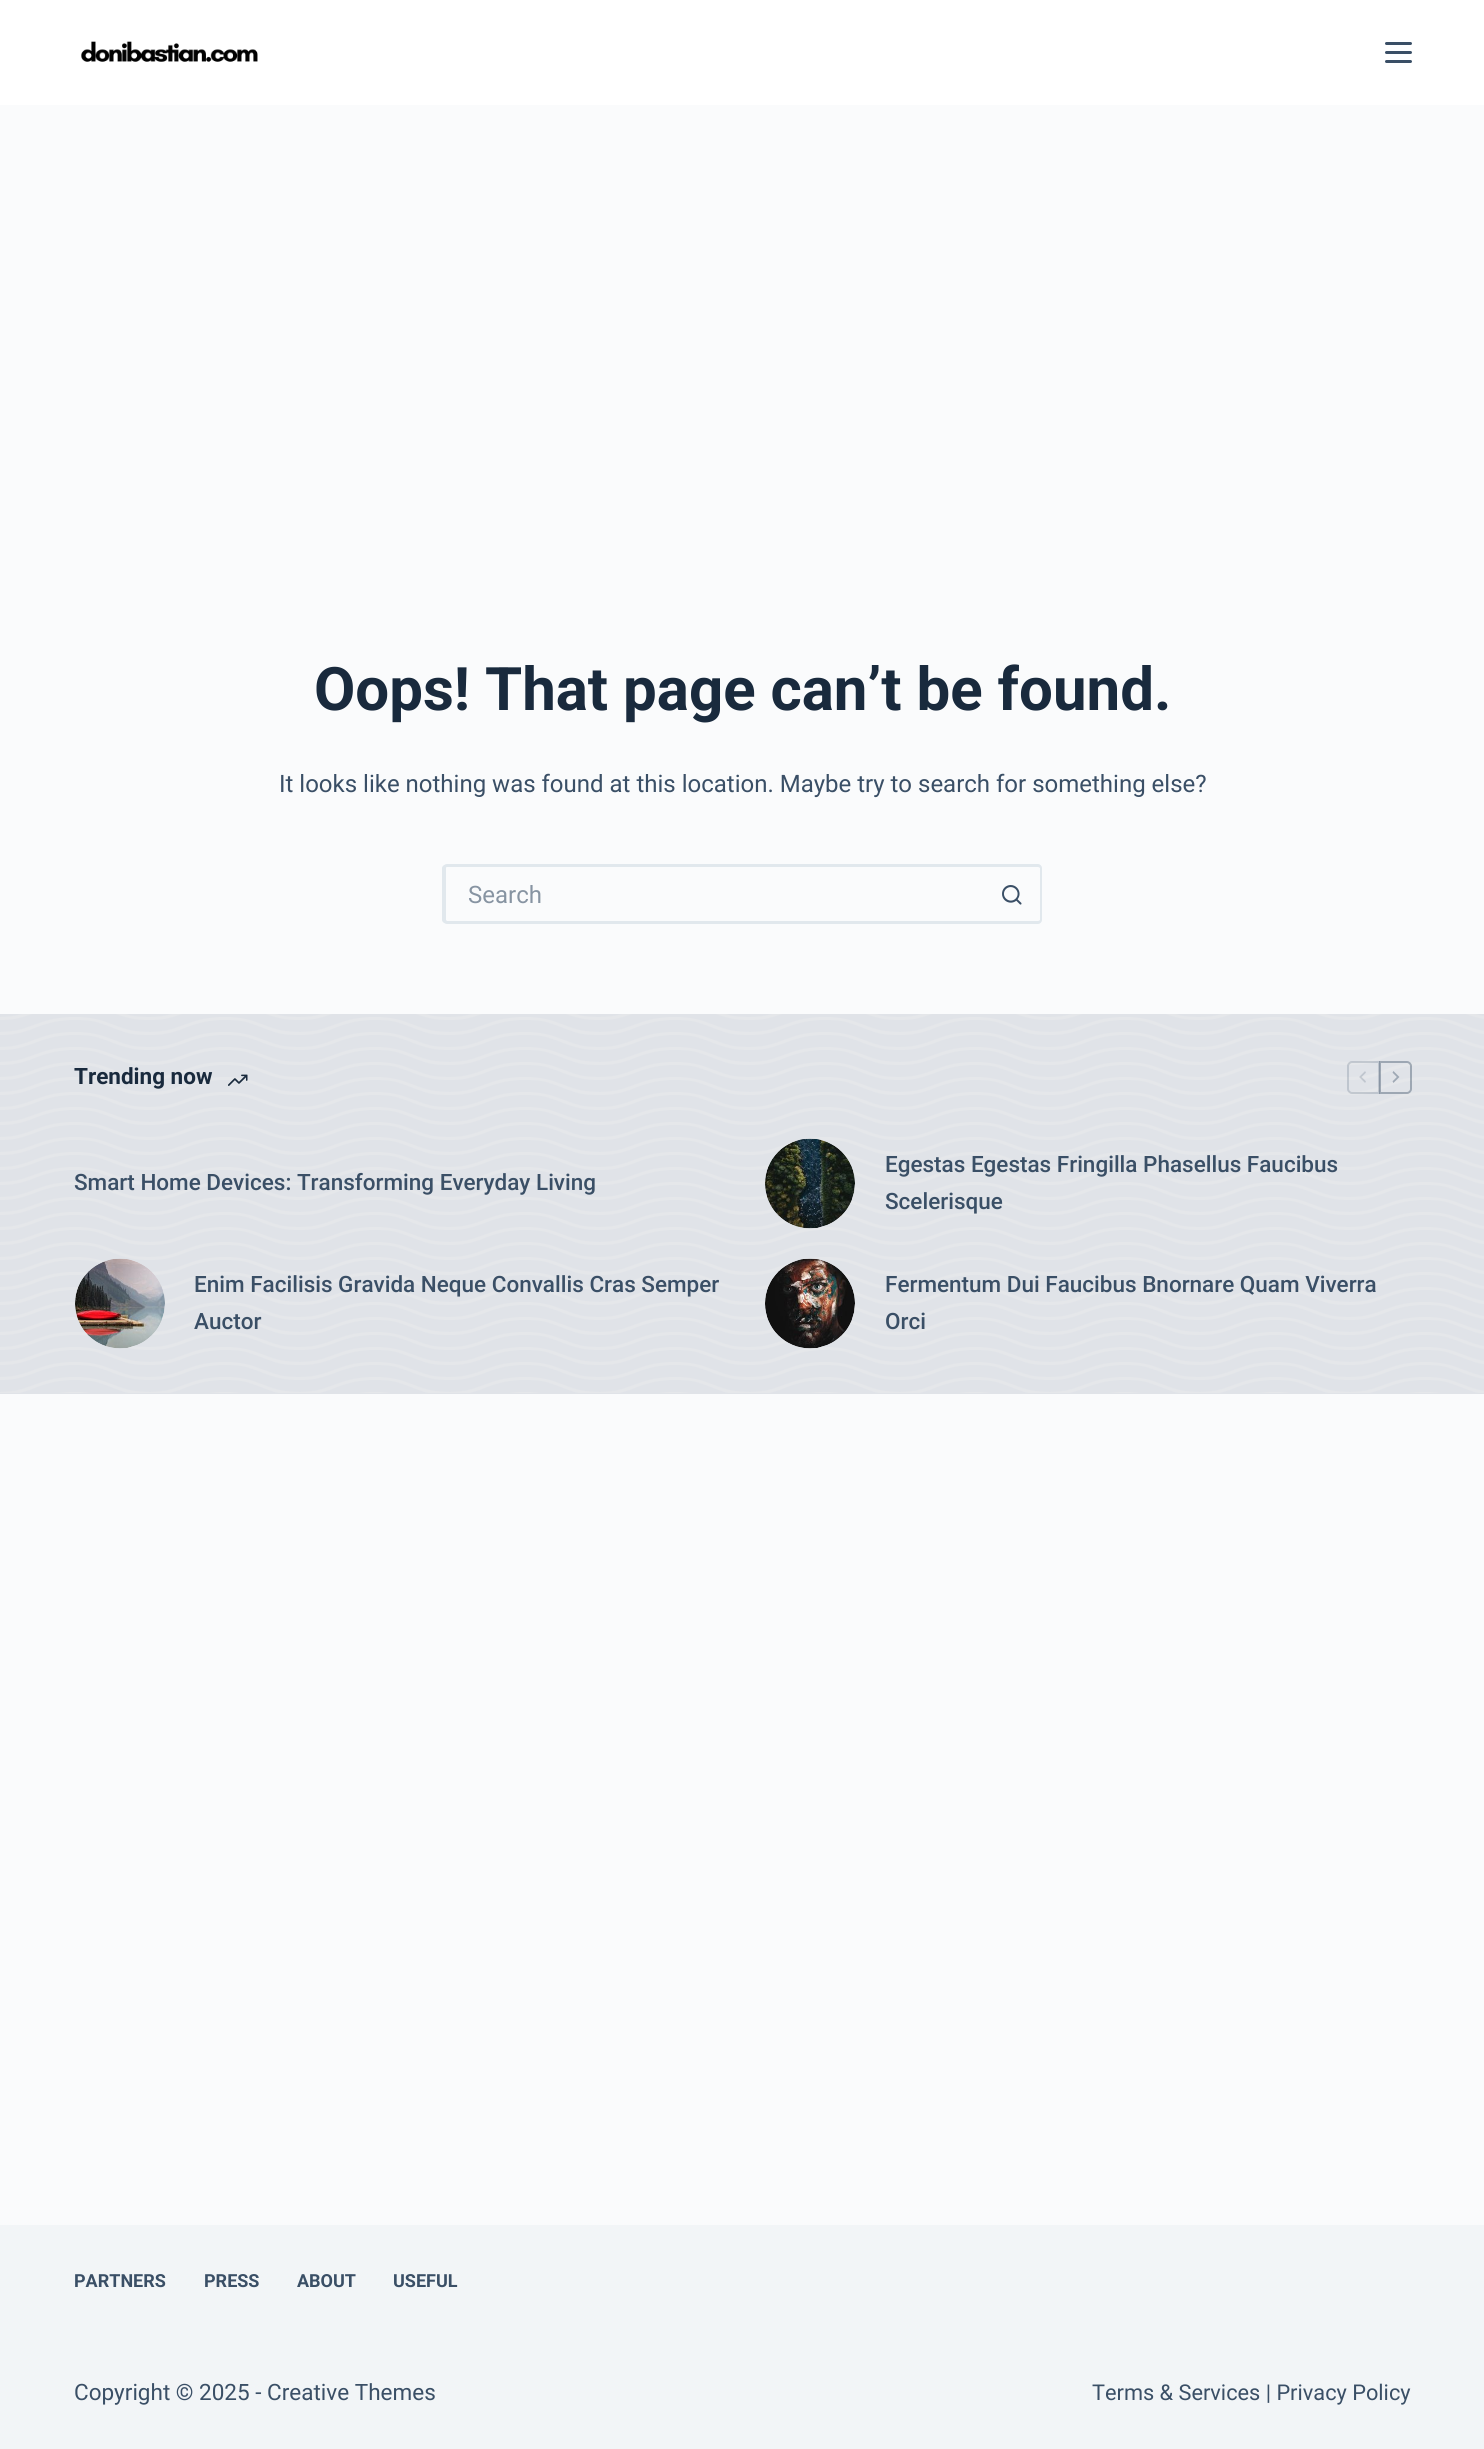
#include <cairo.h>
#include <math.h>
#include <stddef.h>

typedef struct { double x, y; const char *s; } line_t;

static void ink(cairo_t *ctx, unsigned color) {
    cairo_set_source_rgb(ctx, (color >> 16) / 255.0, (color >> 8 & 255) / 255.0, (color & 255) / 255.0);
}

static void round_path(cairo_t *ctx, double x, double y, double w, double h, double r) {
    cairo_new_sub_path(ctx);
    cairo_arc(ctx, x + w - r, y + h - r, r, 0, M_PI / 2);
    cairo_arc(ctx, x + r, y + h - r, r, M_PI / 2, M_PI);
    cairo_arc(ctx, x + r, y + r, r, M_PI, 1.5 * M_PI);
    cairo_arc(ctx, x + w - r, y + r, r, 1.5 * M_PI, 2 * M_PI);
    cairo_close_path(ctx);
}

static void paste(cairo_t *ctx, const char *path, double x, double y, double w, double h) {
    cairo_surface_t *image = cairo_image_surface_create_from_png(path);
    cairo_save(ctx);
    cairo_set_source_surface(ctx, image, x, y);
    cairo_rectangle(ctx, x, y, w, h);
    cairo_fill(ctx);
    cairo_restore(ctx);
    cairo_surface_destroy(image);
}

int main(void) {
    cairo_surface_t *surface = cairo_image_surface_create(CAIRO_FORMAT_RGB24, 1484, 2449);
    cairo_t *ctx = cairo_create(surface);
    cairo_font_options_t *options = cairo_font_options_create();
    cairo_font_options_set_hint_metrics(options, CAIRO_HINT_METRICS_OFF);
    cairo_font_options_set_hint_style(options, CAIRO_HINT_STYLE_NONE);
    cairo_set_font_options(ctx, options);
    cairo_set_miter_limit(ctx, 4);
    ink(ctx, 0xFAFBFC);
    cairo_paint(ctx);
    ink(ctx, 0xFFFFFF);
    cairo_rectangle(ctx, 0, 0, 1484, 105);
    cairo_fill(ctx);
    paste(ctx, "media/1.png", 81, 41, 177, 21);
    ink(ctx, 0x3A4F66);
    round_path(ctx, 1385, 42, 27, 3, 1.5);
    cairo_fill(ctx);
    round_path(ctx, 1385, 51, 27, 3, 1.5);
    cairo_fill(ctx);
    round_path(ctx, 1385, 60, 27, 3, 1.5);
    cairo_fill(ctx);
    cairo_select_font_face(ctx, "Roboto", CAIRO_FONT_SLANT_NORMAL, CAIRO_FONT_WEIGHT_BOLD);
    cairo_set_font_size(ctx, 60);
    ink(ctx, 0x192A3D);
    cairo_move_to(ctx, 314, 710);
    cairo_show_text(ctx, "Oops! That page can’t be found.");
    cairo_select_font_face(ctx, "Roboto", CAIRO_FONT_SLANT_NORMAL, CAIRO_FONT_WEIGHT_NORMAL);
    cairo_set_font_size(ctx, 24);
    ink(ctx, 0x3A4F66);
    cairo_move_to(ctx, 279, 792);
    cairo_show_text(ctx, "It looks like nothing was found at this location. Maybe try to search for something else?");
    ink(ctx, 0xE1E8ED);
    cairo_set_fill_rule(ctx, CAIRO_FILL_RULE_EVEN_ODD);
    cairo_new_path(ctx);
    cairo_move_to(ctx, 447, 864);
    cairo_line_to(ctx, 982, 864);
    cairo_line_to(ctx, 982, 924);
    cairo_line_to(ctx, 447, 924);
    cairo_curve_to(ctx, 445, 924, 442, 922, 442, 920);
    cairo_line_to(ctx, 442, 868);
    cairo_curve_to(ctx, 442, 866, 445, 864, 447, 864);
    cairo_close_path(ctx);
    cairo_move_to(ctx, 447, 867);
    cairo_line_to(ctx, 982, 867);
    cairo_line_to(ctx, 982, 921);
    cairo_line_to(ctx, 447, 921);
    cairo_line_to(ctx, 446, 920);
    cairo_line_to(ctx, 446, 868);
    cairo_curve_to(ctx, 446, 868, 446, 867, 447, 867);
    cairo_close_path(ctx);
    cairo_fill(ctx);
    ink(ctx, 0x8794A2);
    cairo_move_to(ctx, 468, 903);
    cairo_show_text(ctx, "Search");
    ink(ctx, 0xE1E8ED);
    cairo_new_path(ctx);
    cairo_move_to(ctx, 982, 864);
    cairo_line_to(ctx, 1038, 864);
    cairo_curve_to(ctx, 1040, 864, 1042, 866, 1042, 868);
    cairo_line_to(ctx, 1042, 920);
    cairo_curve_to(ctx, 1042, 922, 1040, 924, 1038, 924);
    cairo_line_to(ctx, 982, 924);
    cairo_close_path(ctx);
    cairo_move_to(ctx, 982, 867);
    cairo_line_to(ctx, 1038, 867);
    cairo_curve_to(ctx, 1039, 867, 1040, 868, 1040, 868);
    cairo_line_to(ctx, 1040, 920);
    cairo_curve_to(ctx, 1040, 920, 1039, 921, 1038, 921);
    cairo_line_to(ctx, 982, 921);
    cairo_close_path(ctx);
    cairo_fill(ctx);
    paste(ctx, "media/2.png", 1002, 885, 20, 20);
    ink(ctx, 0xE0E3E8);
    cairo_rectangle(ctx, 0, 1014, 1484, 380);
    cairo_fill(ctx);
    paste(ctx, "media/3.png", 0, 1014, 1484, 379);
    cairo_select_font_face(ctx, "Roboto", CAIRO_FONT_SLANT_NORMAL, CAIRO_FONT_WEIGHT_BOLD);
    cairo_set_font_size(ctx, 22.5);
    ink(ctx, 0x192A3D);
    cairo_move_to(ctx, 74, 1084);
    cairo_show_text(ctx, "Trending now");
    paste(ctx, "media/4.png", 228, 1074, 20, 12);
    cairo_new_path(ctx);
    cairo_move_to(ctx, 1352, 1062);
    cairo_line_to(ctx, 1379, 1062);
    cairo_line_to(ctx, 1379, 1093);
    cairo_line_to(ctx, 1352, 1093);
    cairo_curve_to(ctx, 1350, 1093, 1348, 1091, 1348, 1089);
    cairo_line_to(ctx, 1348, 1066);
    cairo_curve_to(ctx, 1348, 1064, 1350, 1062, 1352, 1062);
    cairo_close_path(ctx);
    cairo_set_source_rgba(ctx, 0.227, 0.31, 0.4, 0.2);
    cairo_stroke(ctx);
    paste(ctx, "media/5.png", 1359, 1071, 7, 12);
    cairo_new_path(ctx);
    cairo_move_to(ctx, 1380, 1062);
    cairo_line_to(ctx, 1407, 1062);
    cairo_curve_to(ctx, 1409, 1062, 1411, 1064, 1411, 1066);
    cairo_line_to(ctx, 1411, 1089);
    cairo_curve_to(ctx, 1411, 1091, 1409, 1093, 1407, 1093);
    cairo_line_to(ctx, 1380, 1093);
    cairo_close_path(ctx);
    cairo_set_source_rgba(ctx, 0.227, 0.31, 0.4, 0.4);
    cairo_stroke(ctx);
    paste(ctx, "media/6.png", 1392, 1071, 8, 12);
    cairo_select_font_face(ctx, "Roboto Medium", CAIRO_FONT_SLANT_NORMAL, CAIRO_FONT_WEIGHT_NORMAL);
    ink(ctx, 0x3A4F66);
    cairo_move_to(ctx, 74, 1190);
    cairo_show_text(ctx, "Smart Home Devices: Transforming Everyday Living");
    paste(ctx, "media/7.png", 765, 1138, 90, 91);
    cairo_move_to(ctx, 885, 1172);
    cairo_show_text(ctx, "Egestas Egestas Fringilla Phasellus Faucibus");
    cairo_move_to(ctx, 885, 1209);
    cairo_show_text(ctx, "Scelerisque");
    paste(ctx, "media/8.png", 75, 1258, 90, 91);
    cairo_move_to(ctx, 194, 1292);
    cairo_show_text(ctx, "Enim Facilisis Gravida Neque Convallis Cras Semper");
    cairo_move_to(ctx, 194, 1329);
    cairo_show_text(ctx, "Auctor");
    paste(ctx, "media/9.png", 765, 1258, 90, 91);
    cairo_move_to(ctx, 885, 1292);
    cairo_show_text(ctx, "Fermentum Dui Faucibus Bnornare Quam Viverra");
    cairo_move_to(ctx, 885, 1329);
    cairo_show_text(ctx, "Orci");
    ink(ctx, 0xF2F5F7);
    cairo_rectangle(ctx, 0, 2225, 1484, 224);
    cairo_fill(ctx);
    cairo_select_font_face(ctx, "Roboto", CAIRO_FONT_SLANT_NORMAL, CAIRO_FONT_WEIGHT_BOLD);
    cairo_set_font_size(ctx, 18);
    ink(ctx, 0x3A4F66);
    {
        static const line_t items[] = {
            {74, 2287, "PARTNERS"},
            {204, 2287, "PRESS"},
            {297, 2287, "ABOUT"},
            {393, 2287, "USEFUL"},
        };
        for (size_t i = 0; i < sizeof items / sizeof *items; i++) {
            cairo_move_to(ctx, items[i].x, items[i].y);
            cairo_show_text(ctx, items[i].s);
        }
    }
    cairo_select_font_face(ctx, "Roboto", CAIRO_FONT_SLANT_NORMAL, CAIRO_FONT_WEIGHT_NORMAL);
    cairo_set_font_size(ctx, 22.5);
    cairo_move_to(ctx, 74, 2400);
    cairo_show_text(ctx, "Copyright © 2025 - Creative Themes");
    cairo_set_font_size(ctx, 21.75);
    cairo_move_to(ctx, 1092, 2400);
    cairo_show_text(ctx, "Terms & Services | Privacy Policy");
    cairo_surface_write_to_png(surface, "image.png");
    cairo_font_options_destroy(options);
    cairo_destroy(ctx);
    cairo_surface_destroy(surface);
    return 0;
}
